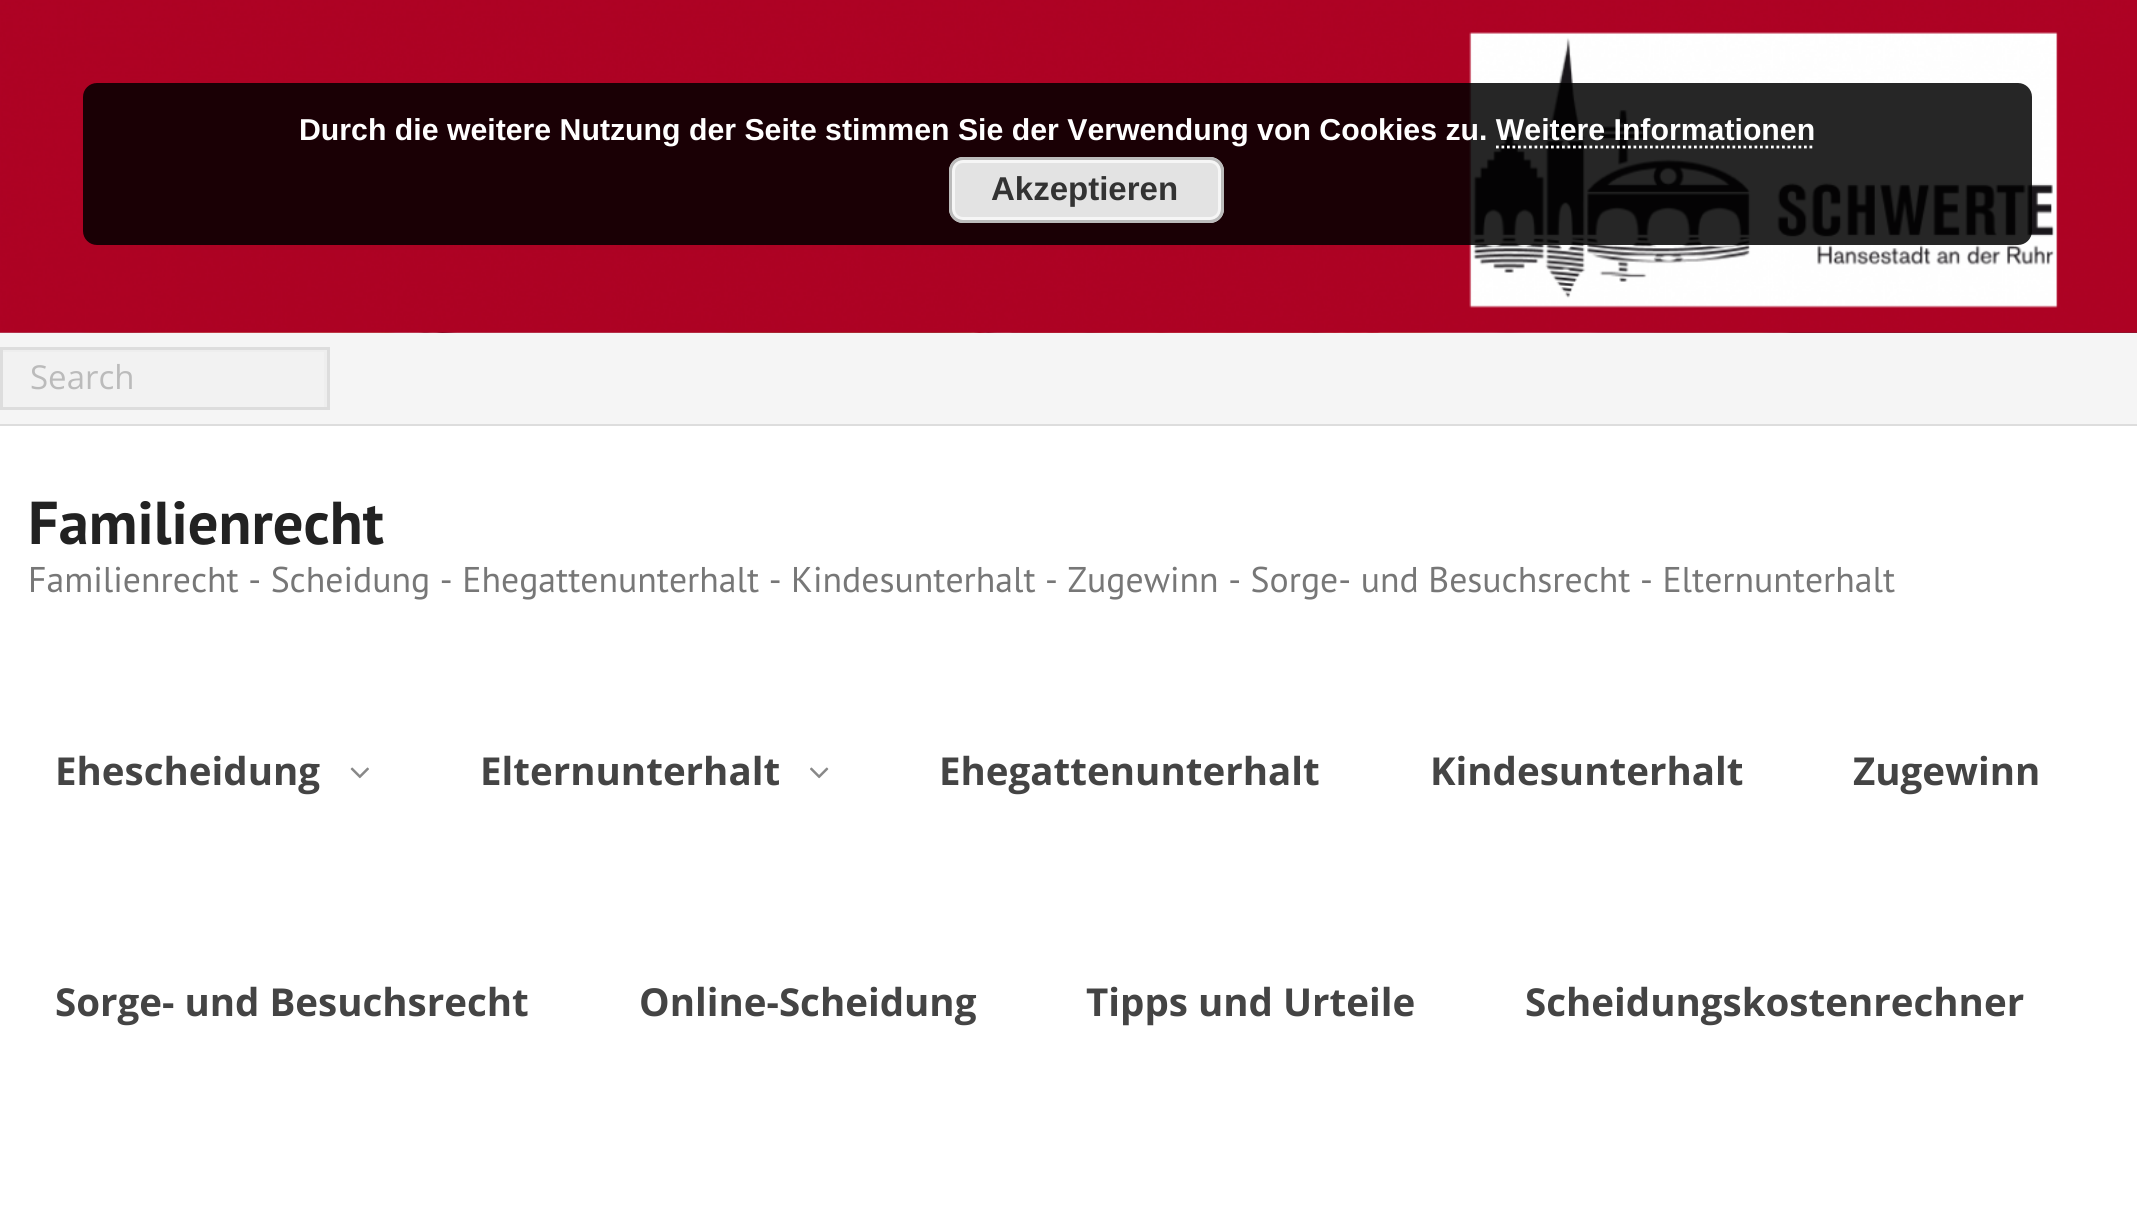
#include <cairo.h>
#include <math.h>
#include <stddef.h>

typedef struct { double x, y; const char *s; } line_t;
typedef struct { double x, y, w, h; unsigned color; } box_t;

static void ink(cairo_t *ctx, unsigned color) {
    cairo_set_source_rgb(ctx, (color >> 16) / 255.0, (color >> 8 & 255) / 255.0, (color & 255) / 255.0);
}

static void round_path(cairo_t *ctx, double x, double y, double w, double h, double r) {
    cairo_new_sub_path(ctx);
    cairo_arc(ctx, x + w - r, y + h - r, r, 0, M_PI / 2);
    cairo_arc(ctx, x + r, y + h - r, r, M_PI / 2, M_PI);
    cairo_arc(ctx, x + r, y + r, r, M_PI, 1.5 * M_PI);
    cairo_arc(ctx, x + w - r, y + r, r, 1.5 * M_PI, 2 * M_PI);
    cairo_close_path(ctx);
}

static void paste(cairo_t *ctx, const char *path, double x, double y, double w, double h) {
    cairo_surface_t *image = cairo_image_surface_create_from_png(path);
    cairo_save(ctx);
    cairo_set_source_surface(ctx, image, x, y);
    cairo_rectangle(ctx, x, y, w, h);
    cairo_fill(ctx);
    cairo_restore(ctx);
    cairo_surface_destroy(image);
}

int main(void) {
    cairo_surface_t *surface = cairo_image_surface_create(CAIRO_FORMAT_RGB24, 2137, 1207);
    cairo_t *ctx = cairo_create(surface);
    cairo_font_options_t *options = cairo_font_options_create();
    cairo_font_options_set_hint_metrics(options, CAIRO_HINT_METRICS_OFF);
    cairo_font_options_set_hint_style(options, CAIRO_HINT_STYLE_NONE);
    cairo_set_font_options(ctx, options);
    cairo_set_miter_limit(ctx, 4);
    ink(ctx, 0xFFFFFF);
    cairo_paint(ctx);
    paste(ctx, "media/1.png", 0, 332, 2137, 1);
    paste(ctx, "media/2.png", 0, 0, 2137, 333);
    cairo_set_source_rgba(ctx, 0, 0, 0, 0.85);
    round_path(ctx, 83, 83, 1949, 162, 14);
    cairo_fill(ctx);
    cairo_select_font_face(ctx, "Liberation Sans", CAIRO_FONT_SLANT_NORMAL, CAIRO_FONT_WEIGHT_BOLD);
    cairo_set_font_size(ctx, 30.25);
    ink(ctx, 0xFFFFFF);
    cairo_move_to(ctx, 299, 140);
    cairo_show_text(ctx, "Durch die weitere Nutzung der Seite stimmen Sie der Verwendung von Cookies zu. Weitere Informationen");
    cairo_new_path(ctx);
    cairo_move_to(ctx, 1496, 147);
    cairo_line_to(ctx, 1815, 147);
    cairo_set_line_width(ctx, 2.8);
    cairo_set_dash(ctx, (double[]){2.75, 2.75}, 2, 0);
    cairo_stroke(ctx);
    ink(ctx, 0xE3E3E3);
    round_path(ctx, 949, 157, 275, 66, 14);
    cairo_fill(ctx);
    round_path(ctx, 953.5, 161.5, 266, 57, 9.5);
    ink(ctx, 0xF6F6F6);
    cairo_set_line_width(ctx, 3);
    cairo_set_dash(ctx, NULL, 0, 0);
    cairo_stroke(ctx);
    round_path(ctx, 950.5, 158.5, 272, 63, 12.5);
    ink(ctx, 0xBBBBBB);
    cairo_stroke(ctx);
    cairo_set_font_size(ctx, 33);
    ink(ctx, 0x333333);
    cairo_move_to(ctx, 991, 200);
    cairo_show_text(ctx, "Akzeptieren");
    {
        static const box_t items[] = {
            {0, 333, 2137, 91, 0xF5F5F5},
            {0, 424, 2137, 2, 0xDDDDDD},
            {3, 352, 321, 55, 0xF2F2F2},
        };
        for (size_t i = 0; i < sizeof items / sizeof *items; i++) {
            ink(ctx, items[i].color);
            cairo_rectangle(ctx, items[i].x, items[i].y, items[i].w, items[i].h);
            cairo_fill(ctx);
        }
    }
    cairo_save(ctx);
    cairo_rectangle(ctx, 3, 349, 324, 58);
    cairo_clip(ctx);
    ink(ctx, 0xEEEEEE);
    cairo_set_fill_rule(ctx, CAIRO_FILL_RULE_EVEN_ODD);
    cairo_new_path(ctx);
    cairo_move_to(ctx, -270, 77);
    cairo_line_to(ctx, 600, 77);
    cairo_line_to(ctx, 600, 679);
    cairo_line_to(ctx, -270, 679);
    cairo_close_path(ctx);
    cairo_move_to(ctx, 0, 352);
    cairo_line_to(ctx, 324, 352);
    cairo_line_to(ctx, 324, 410);
    cairo_line_to(ctx, 0, 410);
    cairo_close_path(ctx);
    cairo_fill(ctx);
    cairo_restore(ctx);
    cairo_rectangle(ctx, 1.5, 348.5, 327, 60);
    ink(ctx, 0xDDDDDD);
    cairo_stroke(ctx);
    cairo_select_font_face(ctx, "Open Sans", CAIRO_FONT_SLANT_NORMAL, CAIRO_FONT_WEIGHT_NORMAL);
    ink(ctx, 0xBBBBBB);
    cairo_move_to(ctx, 30, 389);
    cairo_show_text(ctx, "Search");
    cairo_select_font_face(ctx, "PT Sans", CAIRO_FONT_SLANT_NORMAL, CAIRO_FONT_WEIGHT_BOLD);
    cairo_set_font_size(ctx, 60.5);
    ink(ctx, 0x222222);
    cairo_move_to(ctx, 28, 544);
    cairo_show_text(ctx, "Familienrecht");
    cairo_select_font_face(ctx, "PT Sans", CAIRO_FONT_SLANT_NORMAL, CAIRO_FONT_WEIGHT_NORMAL);
    cairo_set_font_size(ctx, 35.75);
    ink(ctx, 0x777777);
    cairo_move_to(ctx, 28, 592);
    cairo_show_text(ctx, "Familienrecht - Scheidung - Ehegattenunterhalt - Kindesunterhalt - Zugewinn - Sorge- und Besuchsrecht - Elternunterhalt");
    cairo_select_font_face(ctx, "Open Sans", CAIRO_FONT_SLANT_NORMAL, CAIRO_FONT_WEIGHT_BOLD);
    cairo_set_font_size(ctx, 38.5);
    ink(ctx, 0x444444);
    cairo_move_to(ctx, 55, 785);
    cairo_show_text(ctx, "Ehescheidung");
    paste(ctx, "media/3.png", 350, 767, 19, 12);
    cairo_move_to(ctx, 480, 785);
    cairo_show_text(ctx, "Elternunterhalt");
    paste(ctx, "media/4.png", 810, 767, 19, 12);
    {
        static const line_t items[] = {
            {939, 785, "Ehegattenunterhalt"},
            {1430, 785, "Kindesunterhalt"},
            {1853, 785, "Zugewinn"},
            {55, 1016, "Sorge- und Besuchsrecht"},
            {639, 1016, "Online-Scheidung"},
            {1086, 1016, "Tipps und Urteile"},
            {1525, 1016, "Scheidungskostenrechner"},
        };
        for (size_t i = 0; i < sizeof items / sizeof *items; i++) {
            cairo_move_to(ctx, items[i].x, items[i].y);
            cairo_show_text(ctx, items[i].s);
        }
    }
    cairo_surface_write_to_png(surface, "image.png");
    cairo_font_options_destroy(options);
    cairo_destroy(ctx);
    cairo_surface_destroy(surface);
    return 0;
}
